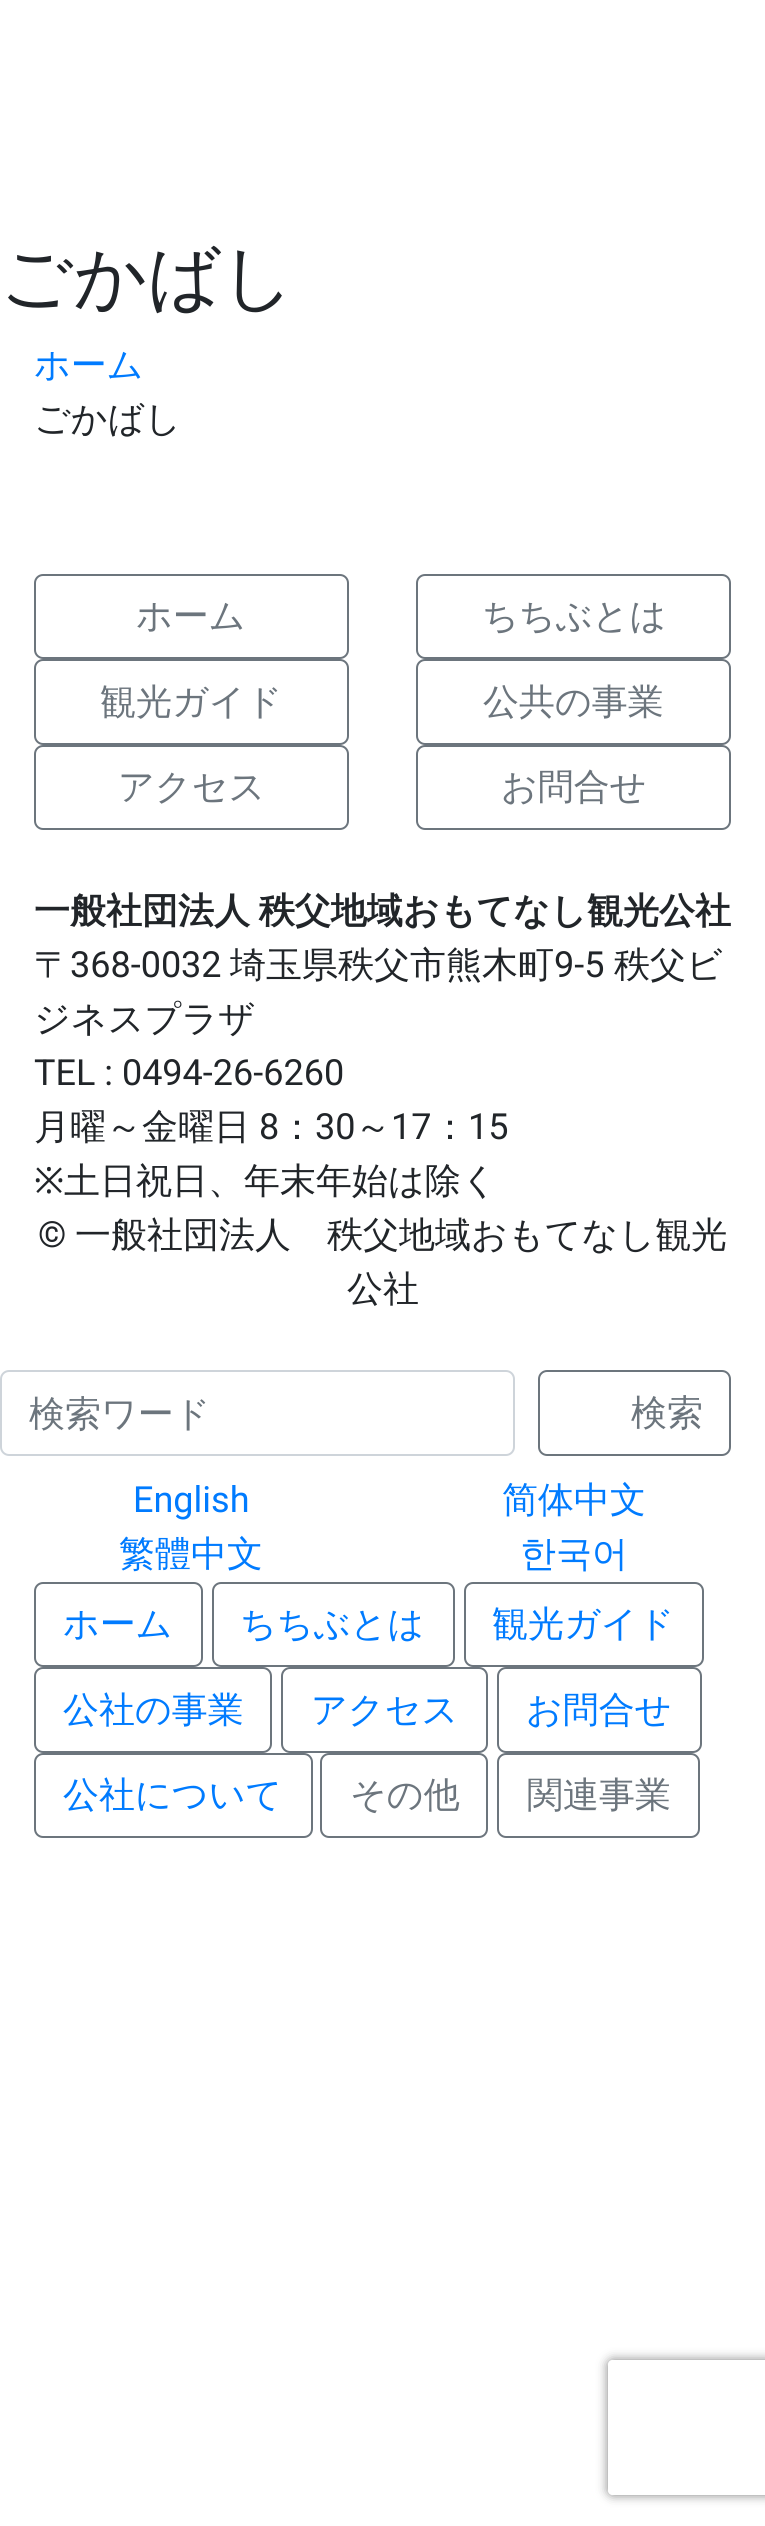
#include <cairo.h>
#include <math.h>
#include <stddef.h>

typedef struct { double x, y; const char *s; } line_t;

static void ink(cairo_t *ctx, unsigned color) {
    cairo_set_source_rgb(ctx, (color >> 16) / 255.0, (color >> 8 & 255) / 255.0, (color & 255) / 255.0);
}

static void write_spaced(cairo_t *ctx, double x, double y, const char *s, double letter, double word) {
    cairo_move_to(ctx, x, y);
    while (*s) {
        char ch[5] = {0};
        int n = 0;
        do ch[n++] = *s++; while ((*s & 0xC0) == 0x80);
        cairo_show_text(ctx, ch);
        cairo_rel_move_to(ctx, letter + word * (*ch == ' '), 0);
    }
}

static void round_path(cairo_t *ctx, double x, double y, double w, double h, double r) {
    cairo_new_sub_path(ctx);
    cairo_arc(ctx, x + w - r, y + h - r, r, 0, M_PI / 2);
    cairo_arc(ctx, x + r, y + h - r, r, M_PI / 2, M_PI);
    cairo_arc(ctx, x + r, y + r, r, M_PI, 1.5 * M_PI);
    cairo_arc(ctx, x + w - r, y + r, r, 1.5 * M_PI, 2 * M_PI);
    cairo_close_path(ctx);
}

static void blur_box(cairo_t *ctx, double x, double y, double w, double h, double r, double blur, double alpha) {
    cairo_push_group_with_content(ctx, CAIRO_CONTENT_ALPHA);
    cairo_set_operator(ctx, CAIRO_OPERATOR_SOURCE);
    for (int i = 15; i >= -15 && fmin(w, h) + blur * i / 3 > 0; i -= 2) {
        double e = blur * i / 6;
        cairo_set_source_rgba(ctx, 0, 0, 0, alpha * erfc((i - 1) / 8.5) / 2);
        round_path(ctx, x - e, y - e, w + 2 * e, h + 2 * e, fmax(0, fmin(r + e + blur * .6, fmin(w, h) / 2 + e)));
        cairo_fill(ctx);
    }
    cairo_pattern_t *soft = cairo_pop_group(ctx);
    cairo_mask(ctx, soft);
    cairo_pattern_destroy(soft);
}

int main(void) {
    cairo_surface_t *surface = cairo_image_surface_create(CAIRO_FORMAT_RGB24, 765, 2526);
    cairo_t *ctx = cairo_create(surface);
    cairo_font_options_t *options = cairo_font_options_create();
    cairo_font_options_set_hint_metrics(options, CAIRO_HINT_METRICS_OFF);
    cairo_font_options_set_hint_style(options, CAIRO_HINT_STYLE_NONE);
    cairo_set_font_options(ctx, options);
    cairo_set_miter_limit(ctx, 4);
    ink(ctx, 0xFFFFFF);
    cairo_paint(ctx);
    cairo_select_font_face(ctx, "WenQuanYi Zen Hei Medium", CAIRO_FONT_SLANT_NORMAL, CAIRO_FONT_WEIGHT_NORMAL);
    cairo_set_font_size(ctx, 72);
    ink(ctx, 0x212529);
    cairo_move_to(ctx, 0, 302);
    cairo_show_text(ctx, "ごかばし");
    cairo_set_font_size(ctx, 36);
    ink(ctx, 0x007BFF);
    cairo_move_to(ctx, 34, 377);
    cairo_show_text(ctx, "ホーム");
    ink(ctx, 0x212529);
    cairo_move_to(ctx, 34, 431);
    cairo_show_text(ctx, "ごかばし");
    round_path(ctx, 35, 575, 313, 83, 8);
    ink(ctx, 0x6C757D);
    cairo_stroke(ctx);
    cairo_move_to(ctx, 136, 628);
    cairo_show_text(ctx, "ホーム");
    round_path(ctx, 417, 575, 313, 83, 8);
    cairo_stroke(ctx);
    cairo_move_to(ctx, 482, 628);
    cairo_show_text(ctx, "ちちぶとは");
    round_path(ctx, 35, 660, 313, 84, 8);
    cairo_stroke(ctx);
    cairo_move_to(ctx, 100, 714);
    cairo_show_text(ctx, "観光ガイド");
    round_path(ctx, 417, 660, 313, 84, 8);
    cairo_stroke(ctx);
    cairo_move_to(ctx, 483, 714);
    cairo_show_text(ctx, "公共の事業");
    round_path(ctx, 35, 746, 313, 83, 8);
    cairo_stroke(ctx);
    cairo_move_to(ctx, 118, 799);
    cairo_show_text(ctx, "アクセス");
    round_path(ctx, 417, 746, 313, 83, 8);
    cairo_stroke(ctx);
    cairo_move_to(ctx, 501, 799);
    cairo_show_text(ctx, "お問合せ");
    cairo_select_font_face(ctx, "WenQuanYi Zen Hei", CAIRO_FONT_SLANT_NORMAL, CAIRO_FONT_WEIGHT_BOLD);
    ink(ctx, 0x212529);
    write_spaced(ctx, 34, 923, "一般社団法人 秩父地域おもてなし観光公社", 0, -2);
    cairo_select_font_face(ctx, "WenQuanYi Zen Hei Medium", CAIRO_FONT_SLANT_NORMAL, CAIRO_FONT_WEIGHT_NORMAL);
    cairo_move_to(ctx, 34, 977);
    cairo_show_text(ctx, "〒");
    cairo_select_font_face(ctx, "Roboto", CAIRO_FONT_SLANT_NORMAL, CAIRO_FONT_WEIGHT_NORMAL);
    cairo_move_to(ctx, 70, 977);
    cairo_show_text(ctx, "368-0032");
    cairo_select_font_face(ctx, "WenQuanYi Zen Hei Medium", CAIRO_FONT_SLANT_NORMAL, CAIRO_FONT_WEIGHT_NORMAL);
    cairo_move_to(ctx, 230, 977);
    cairo_show_text(ctx, "埼玉県秩父市熊木町");
    cairo_select_font_face(ctx, "Roboto", CAIRO_FONT_SLANT_NORMAL, CAIRO_FONT_WEIGHT_NORMAL);
    cairo_move_to(ctx, 554, 977);
    cairo_show_text(ctx, "9-5");
    cairo_select_font_face(ctx, "WenQuanYi Zen Hei Medium", CAIRO_FONT_SLANT_NORMAL, CAIRO_FONT_WEIGHT_NORMAL);
    cairo_move_to(ctx, 614, 977);
    cairo_show_text(ctx, "秩父ビ");
    cairo_move_to(ctx, 34, 1031);
    cairo_show_text(ctx, "ジネスプラザ");
    cairo_select_font_face(ctx, "Roboto", CAIRO_FONT_SLANT_NORMAL, CAIRO_FONT_WEIGHT_NORMAL);
    cairo_move_to(ctx, 34, 1085);
    cairo_show_text(ctx, "TEL : 0494-26-6260");
    cairo_select_font_face(ctx, "WenQuanYi Zen Hei Medium", CAIRO_FONT_SLANT_NORMAL, CAIRO_FONT_WEIGHT_NORMAL);
    cairo_move_to(ctx, 34, 1139);
    cairo_show_text(ctx, "月曜～金曜日");
    cairo_select_font_face(ctx, "Roboto", CAIRO_FONT_SLANT_NORMAL, CAIRO_FONT_WEIGHT_NORMAL);
    cairo_move_to(ctx, 259, 1139);
    cairo_show_text(ctx, "8");
    cairo_select_font_face(ctx, "WenQuanYi Zen Hei Medium", CAIRO_FONT_SLANT_NORMAL, CAIRO_FONT_WEIGHT_NORMAL);
    cairo_move_to(ctx, 279, 1139);
    cairo_show_text(ctx, "：");
    cairo_select_font_face(ctx, "Roboto", CAIRO_FONT_SLANT_NORMAL, CAIRO_FONT_WEIGHT_NORMAL);
    cairo_move_to(ctx, 315, 1139);
    cairo_show_text(ctx, "30");
    cairo_select_font_face(ctx, "WenQuanYi Zen Hei Medium", CAIRO_FONT_SLANT_NORMAL, CAIRO_FONT_WEIGHT_NORMAL);
    cairo_move_to(ctx, 355, 1139);
    cairo_show_text(ctx, "～");
    cairo_select_font_face(ctx, "Roboto", CAIRO_FONT_SLANT_NORMAL, CAIRO_FONT_WEIGHT_NORMAL);
    cairo_move_to(ctx, 391, 1139);
    cairo_show_text(ctx, "17");
    cairo_select_font_face(ctx, "WenQuanYi Zen Hei Medium", CAIRO_FONT_SLANT_NORMAL, CAIRO_FONT_WEIGHT_NORMAL);
    cairo_move_to(ctx, 432, 1139);
    cairo_show_text(ctx, "：");
    cairo_select_font_face(ctx, "Roboto", CAIRO_FONT_SLANT_NORMAL, CAIRO_FONT_WEIGHT_NORMAL);
    cairo_move_to(ctx, 468, 1139);
    cairo_show_text(ctx, "15");
    cairo_select_font_face(ctx, "Noto Sans", CAIRO_FONT_SLANT_NORMAL, CAIRO_FONT_WEIGHT_NORMAL);
    cairo_move_to(ctx, 34, 1193);
    cairo_show_text(ctx, "※");
    cairo_select_font_face(ctx, "WenQuanYi Zen Hei Medium", CAIRO_FONT_SLANT_NORMAL, CAIRO_FONT_WEIGHT_NORMAL);
    cairo_move_to(ctx, 64, 1193);
    cairo_show_text(ctx, "土日祝日、年末年始は除く");
    cairo_select_font_face(ctx, "Roboto", CAIRO_FONT_SLANT_NORMAL, CAIRO_FONT_WEIGHT_NORMAL);
    cairo_move_to(ctx, 38, 1247);
    cairo_show_text(ctx, "©");
    cairo_select_font_face(ctx, "WenQuanYi Zen Hei Medium", CAIRO_FONT_SLANT_NORMAL, CAIRO_FONT_WEIGHT_NORMAL);
    cairo_move_to(ctx, 75, 1247);
    cairo_show_text(ctx, "一般社団法人　秩父地域おもてなし観光");
    cairo_move_to(ctx, 347, 1301);
    cairo_show_text(ctx, "公社");
    round_path(ctx, 1, 1371, 513, 84, 8);
    ink(ctx, 0xCED4DA);
    cairo_stroke(ctx);
    ink(ctx, 0x6C757D);
    cairo_move_to(ctx, 29, 1426);
    cairo_show_text(ctx, "検索ワード");
    round_path(ctx, 539, 1371, 191, 84, 8);
    cairo_stroke(ctx);
    cairo_move_to(ctx, 631, 1425);
    cairo_show_text(ctx, "検索");
    cairo_select_font_face(ctx, "Roboto", CAIRO_FONT_SLANT_NORMAL, CAIRO_FONT_WEIGHT_NORMAL);
    ink(ctx, 0x007BFF);
    cairo_move_to(ctx, 133, 1512);
    cairo_show_text(ctx, "English");
    cairo_select_font_face(ctx, "WenQuanYi Zen Hei Medium", CAIRO_FONT_SLANT_NORMAL, CAIRO_FONT_WEIGHT_NORMAL);
    {
        static const line_t items[] = {
            {502, 1512, "简体中文"},
            {119, 1566, "繁體中文"},
            {520, 1566, "한국어"},
        };
        for (size_t i = 0; i < sizeof items / sizeof *items; i++) {
            cairo_move_to(ctx, items[i].x, items[i].y);
            cairo_show_text(ctx, items[i].s);
        }
    }
    round_path(ctx, 35, 1583, 167, 83, 8);
    ink(ctx, 0x6C757D);
    cairo_stroke(ctx);
    ink(ctx, 0x007BFF);
    cairo_move_to(ctx, 63, 1636);
    cairo_show_text(ctx, "ホーム");
    round_path(ctx, 213, 1583, 241, 83, 8);
    ink(ctx, 0x6C757D);
    cairo_stroke(ctx);
    ink(ctx, 0x007BFF);
    cairo_move_to(ctx, 240, 1636);
    cairo_show_text(ctx, "ちちぶとは");
    round_path(ctx, 465, 1583, 238, 83, 8);
    ink(ctx, 0x6C757D);
    cairo_stroke(ctx);
    ink(ctx, 0x007BFF);
    cairo_move_to(ctx, 492, 1636);
    cairo_show_text(ctx, "観光ガイド");
    round_path(ctx, 35, 1668, 236, 84, 8);
    ink(ctx, 0x6C757D);
    cairo_stroke(ctx);
    ink(ctx, 0x007BFF);
    cairo_move_to(ctx, 63, 1722);
    cairo_show_text(ctx, "公社の事業");
    round_path(ctx, 282, 1668, 205, 84, 8);
    ink(ctx, 0x6C757D);
    cairo_stroke(ctx);
    ink(ctx, 0x007BFF);
    cairo_move_to(ctx, 311, 1722);
    cairo_show_text(ctx, "アクセス");
    round_path(ctx, 498, 1668, 203, 84, 8);
    ink(ctx, 0x6C757D);
    cairo_stroke(ctx);
    ink(ctx, 0x007BFF);
    cairo_move_to(ctx, 526, 1722);
    cairo_show_text(ctx, "お問合せ");
    round_path(ctx, 35, 1754, 277, 83, 8);
    ink(ctx, 0x6C757D);
    cairo_stroke(ctx);
    ink(ctx, 0x007BFF);
    cairo_move_to(ctx, 63, 1807);
    cairo_show_text(ctx, "公社について");
    round_path(ctx, 321, 1754, 166, 83, 8);
    ink(ctx, 0x6C757D);
    cairo_stroke(ctx);
    cairo_move_to(ctx, 350, 1807);
    cairo_show_text(ctx, "その他");
    round_path(ctx, 498, 1754, 201, 83, 8);
    cairo_stroke(ctx);
    cairo_move_to(ctx, 527, 1807);
    cairo_show_text(ctx, "関連事業");
    cairo_save(ctx);
    cairo_set_fill_rule(ctx, CAIRO_FILL_RULE_EVEN_ODD);
    cairo_new_path(ctx);
    cairo_move_to(ctx, 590, 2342);
    cairo_line_to(ctx, 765, 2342);
    cairo_line_to(ctx, 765, 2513);
    cairo_line_to(ctx, 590, 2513);
    cairo_close_path(ctx);
    cairo_move_to(ctx, 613, 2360);
    cairo_line_to(ctx, 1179, 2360);
    cairo_curve_to(ctx, 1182, 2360, 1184, 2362, 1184, 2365);
    cairo_line_to(ctx, 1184, 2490);
    cairo_curve_to(ctx, 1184, 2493, 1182, 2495, 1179, 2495);
    cairo_line_to(ctx, 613, 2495);
    cairo_curve_to(ctx, 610, 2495, 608, 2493, 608, 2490);
    cairo_line_to(ctx, 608, 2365);
    cairo_curve_to(ctx, 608, 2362, 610, 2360, 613, 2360);
    cairo_close_path(ctx);
    cairo_clip(ctx);
    ink(ctx, 0x808080);
    blur_box(ctx, 608, 2360, 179, 135, 5, 5.5, 1);
    cairo_restore(ctx);
    cairo_surface_write_to_png(surface, "image.png");
    cairo_font_options_destroy(options);
    cairo_destroy(ctx);
    cairo_surface_destroy(surface);
    return 0;
}
